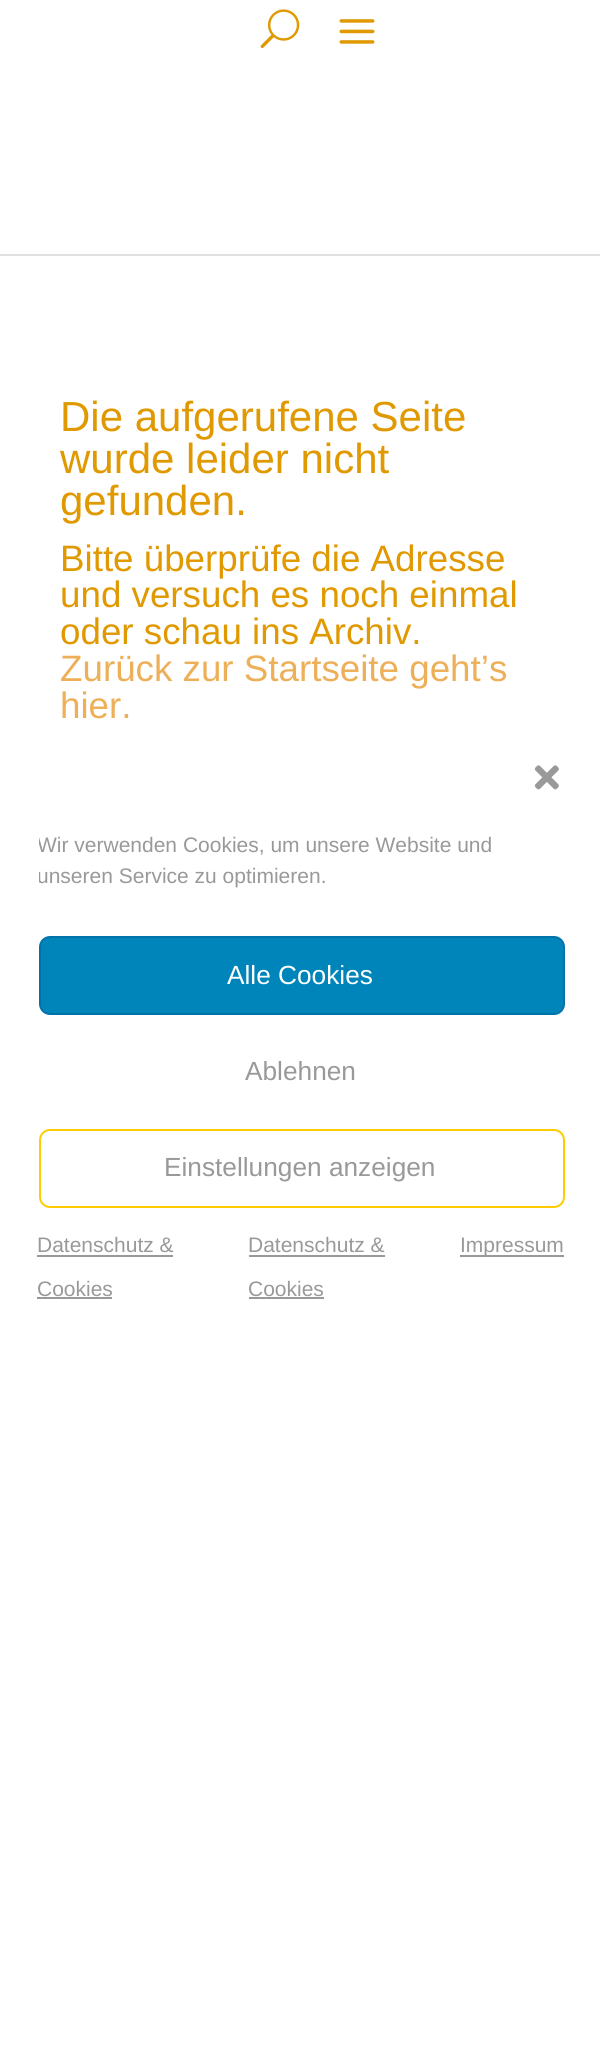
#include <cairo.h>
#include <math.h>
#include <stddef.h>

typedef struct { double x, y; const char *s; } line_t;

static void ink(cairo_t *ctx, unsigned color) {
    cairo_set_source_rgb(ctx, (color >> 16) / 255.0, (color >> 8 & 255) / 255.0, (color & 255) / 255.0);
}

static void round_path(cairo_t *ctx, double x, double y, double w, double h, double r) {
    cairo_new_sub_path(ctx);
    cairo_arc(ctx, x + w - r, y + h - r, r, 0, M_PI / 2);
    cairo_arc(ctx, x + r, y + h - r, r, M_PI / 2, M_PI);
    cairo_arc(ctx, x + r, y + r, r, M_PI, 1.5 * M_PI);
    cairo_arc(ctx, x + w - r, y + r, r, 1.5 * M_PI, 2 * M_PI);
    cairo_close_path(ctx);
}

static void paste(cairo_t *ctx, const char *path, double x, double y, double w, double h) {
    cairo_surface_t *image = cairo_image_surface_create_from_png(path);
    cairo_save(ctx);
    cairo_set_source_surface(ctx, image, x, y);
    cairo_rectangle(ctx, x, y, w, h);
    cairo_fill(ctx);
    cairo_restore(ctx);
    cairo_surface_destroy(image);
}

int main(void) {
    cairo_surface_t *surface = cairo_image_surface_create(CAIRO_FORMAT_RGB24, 600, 2069);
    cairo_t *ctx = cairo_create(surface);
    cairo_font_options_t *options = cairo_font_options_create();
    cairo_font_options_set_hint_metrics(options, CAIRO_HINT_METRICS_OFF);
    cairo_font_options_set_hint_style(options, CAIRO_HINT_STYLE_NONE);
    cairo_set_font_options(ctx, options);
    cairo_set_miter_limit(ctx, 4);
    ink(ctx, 0xFFFFFF);
    cairo_paint(ctx);
    ink(ctx, 0xE0E0E0);
    cairo_rectangle(ctx, 0, 254, 600, 2);
    cairo_fill(ctx);
    paste(ctx, "media/1.png", 260, 9, 40, 39);
    paste(ctx, "media/2.png", 339, 19, 36, 25);
    cairo_select_font_face(ctx, "Liberation Sans", CAIRO_FONT_SLANT_NORMAL, CAIRO_FONT_WEIGHT_NORMAL);
    cairo_set_font_size(ctx, 42);
    ink(ctx, 0xE09900);
    {
        static const line_t items[] = {
            {60, 431, "Die aufgerufene Seite"},
            {60, 473, "wurde leider nicht"},
            {60, 515, "gefunden."},
        };
        for (size_t i = 0; i < sizeof items / sizeof *items; i++) {
            cairo_move_to(ctx, items[i].x, items[i].y);
            cairo_show_text(ctx, items[i].s);
        }
    }
    cairo_set_font_size(ctx, 36.75);
    {
        static const line_t items[] = {
            {60, 571, "Bitte überprüfe die Adresse"},
            {60, 607, "und versuch es noch einmal"},
            {60, 644, "oder schau ins Archiv."},
        };
        for (size_t i = 0; i < sizeof items / sizeof *items; i++) {
            cairo_move_to(ctx, items[i].x, items[i].y);
            cairo_show_text(ctx, items[i].s);
        }
    }
    ink(ctx, 0xEDB059);
    cairo_move_to(ctx, 60, 681);
    cairo_show_text(ctx, "Zurück zur Startseite geht’s");
    cairo_move_to(ctx, 60, 718);
    cairo_show_text(ctx, "hier.");
    paste(ctx, "media/3.png", 534, 765, 25, 25);
    cairo_save(ctx);
    cairo_rectangle(ctx, 39, 830, 526, 71);
    cairo_clip(ctx);
    cairo_set_font_size(ctx, 21);
    ink(ctx, 0x999999);
    cairo_move_to(ctx, 37, 852);
    cairo_show_text(ctx, "Wir verwenden Cookies, um unsere Website und");
    cairo_move_to(ctx, 37, 883);
    cairo_show_text(ctx, "unseren Service zu optimieren.");
    cairo_restore(ctx);
    ink(ctx, 0x0085BA);
    round_path(ctx, 40, 937, 524, 77, 10);
    cairo_fill_preserve(ctx);
    ink(ctx, 0x0073AA);
    cairo_stroke(ctx);
    cairo_set_font_size(ctx, 26.25);
    ink(ctx, 0xFFFFFF);
    cairo_move_to(ctx, 227, 984);
    cairo_show_text(ctx, "Alle Cookies");
    ink(ctx, 0x999999);
    cairo_move_to(ctx, 245, 1080);
    cairo_show_text(ctx, "Ablehnen");
    round_path(ctx, 40, 1130, 524, 77, 10);
    ink(ctx, 0xFFCC00);
    cairo_stroke(ctx);
    ink(ctx, 0x999999);
    cairo_move_to(ctx, 164, 1176);
    cairo_show_text(ctx, "Einstellungen anzeigen");
    cairo_set_font_size(ctx, 21);
    cairo_move_to(ctx, 37, 1252);
    cairo_show_text(ctx, "Datenschutz &");
    cairo_rectangle(ctx, 37, 1255, 136, 2);
    cairo_fill(ctx);
    cairo_move_to(ctx, 37, 1296);
    cairo_show_text(ctx, "Cookies");
    cairo_rectangle(ctx, 37, 1297, 75, 2);
    cairo_fill(ctx);
    cairo_move_to(ctx, 248, 1252);
    cairo_show_text(ctx, "Datenschutz &");
    cairo_rectangle(ctx, 249, 1255, 136, 2);
    cairo_fill(ctx);
    cairo_move_to(ctx, 248, 1296);
    cairo_show_text(ctx, "Cookies");
    cairo_rectangle(ctx, 249, 1297, 75, 2);
    cairo_fill(ctx);
    cairo_rectangle(ctx, 460, 1255, 104, 2);
    cairo_fill(ctx);
    cairo_move_to(ctx, 460, 1252);
    cairo_show_text(ctx, "Impressum");
    cairo_surface_write_to_png(surface, "image.png");
    cairo_font_options_destroy(options);
    cairo_destroy(ctx);
    cairo_surface_destroy(surface);
    return 0;
}
